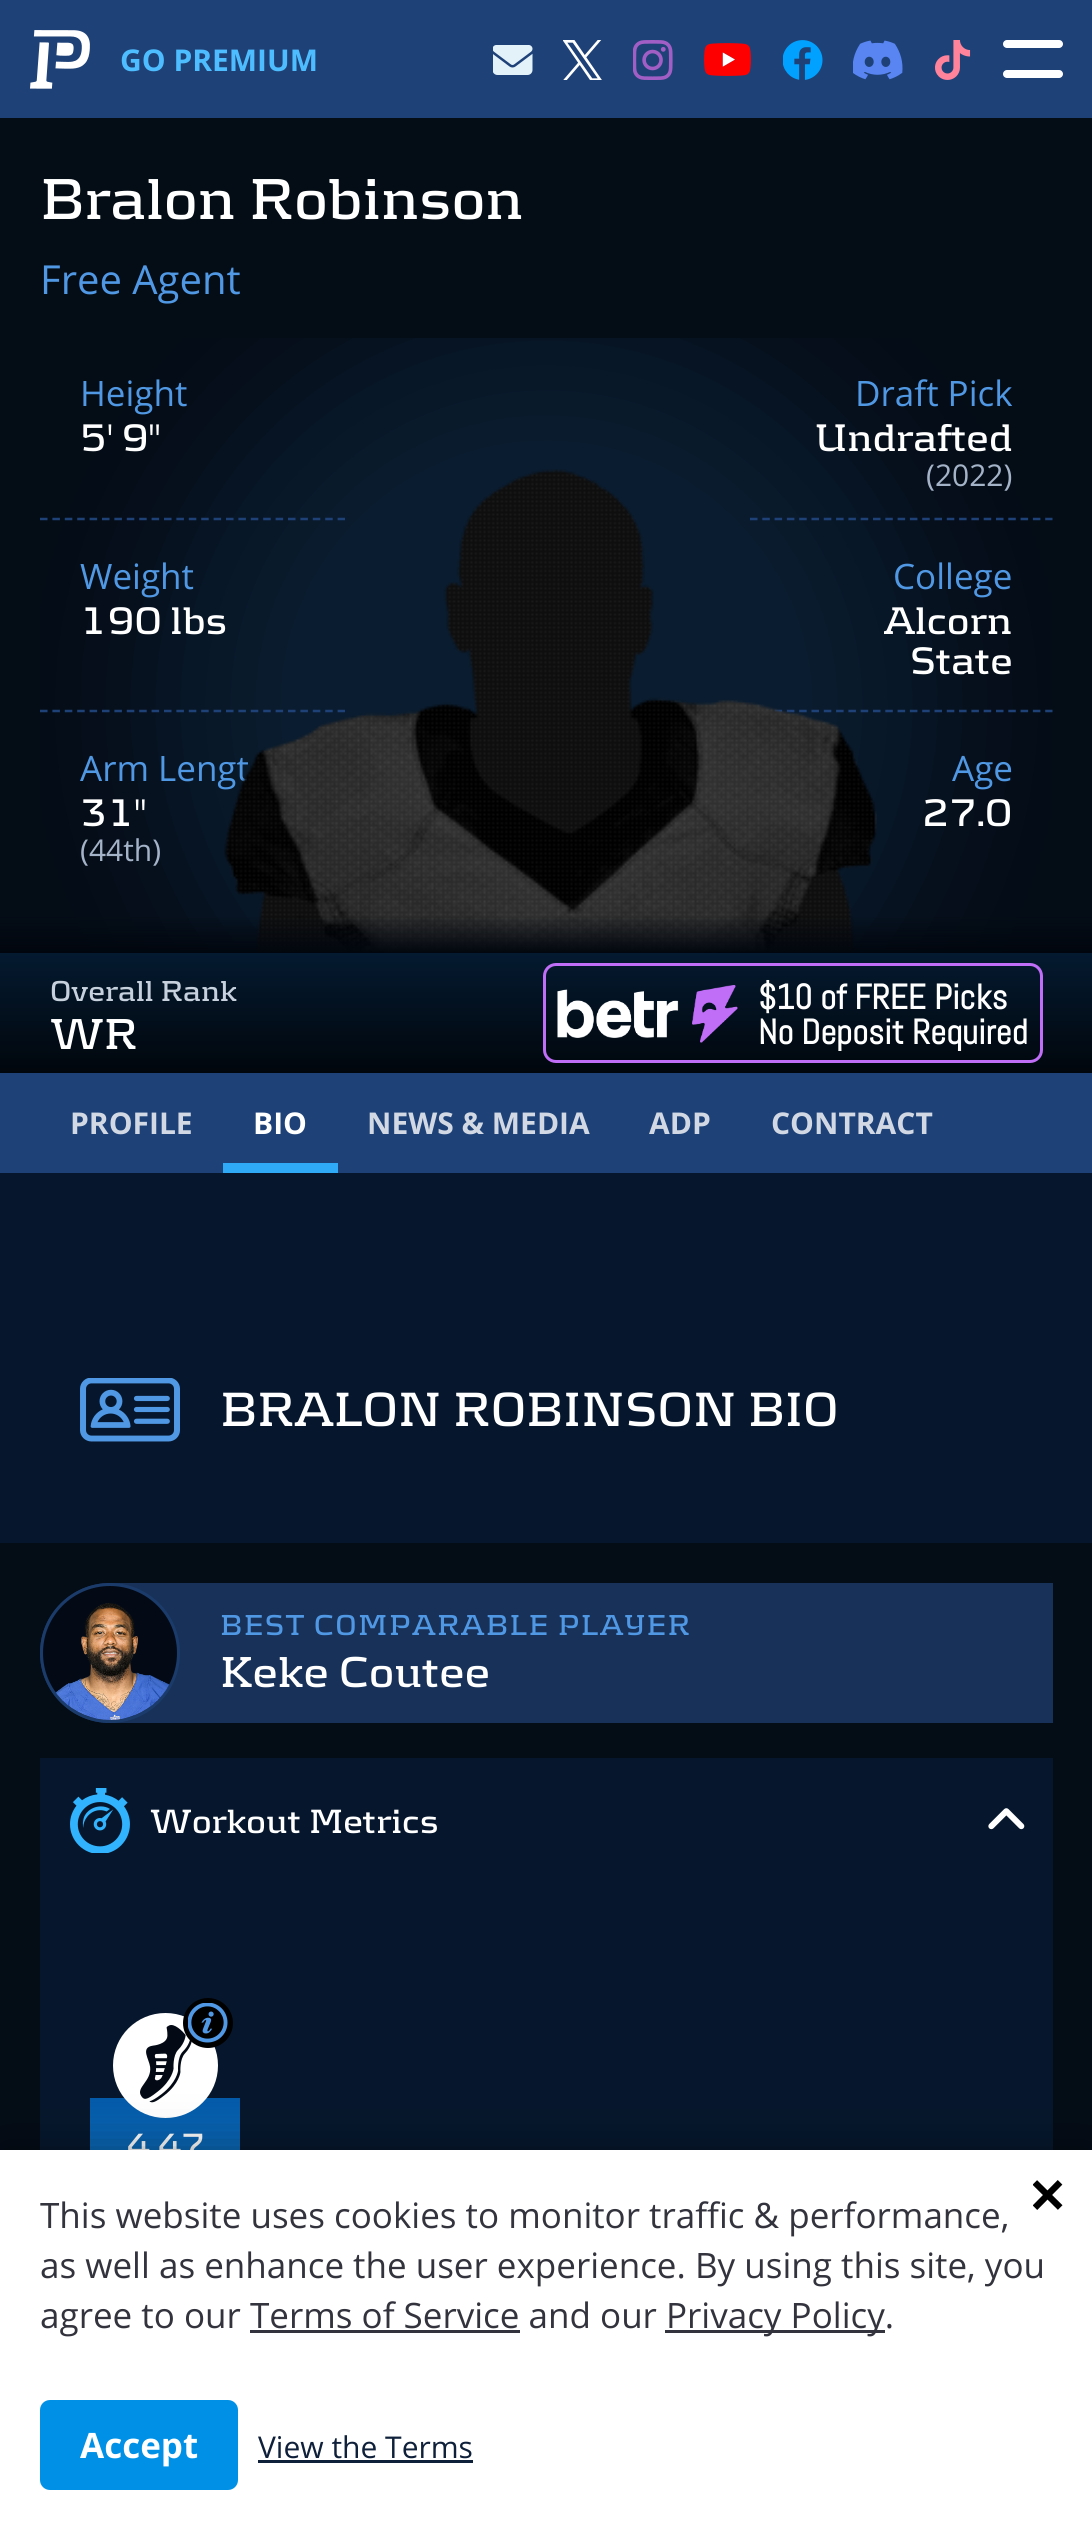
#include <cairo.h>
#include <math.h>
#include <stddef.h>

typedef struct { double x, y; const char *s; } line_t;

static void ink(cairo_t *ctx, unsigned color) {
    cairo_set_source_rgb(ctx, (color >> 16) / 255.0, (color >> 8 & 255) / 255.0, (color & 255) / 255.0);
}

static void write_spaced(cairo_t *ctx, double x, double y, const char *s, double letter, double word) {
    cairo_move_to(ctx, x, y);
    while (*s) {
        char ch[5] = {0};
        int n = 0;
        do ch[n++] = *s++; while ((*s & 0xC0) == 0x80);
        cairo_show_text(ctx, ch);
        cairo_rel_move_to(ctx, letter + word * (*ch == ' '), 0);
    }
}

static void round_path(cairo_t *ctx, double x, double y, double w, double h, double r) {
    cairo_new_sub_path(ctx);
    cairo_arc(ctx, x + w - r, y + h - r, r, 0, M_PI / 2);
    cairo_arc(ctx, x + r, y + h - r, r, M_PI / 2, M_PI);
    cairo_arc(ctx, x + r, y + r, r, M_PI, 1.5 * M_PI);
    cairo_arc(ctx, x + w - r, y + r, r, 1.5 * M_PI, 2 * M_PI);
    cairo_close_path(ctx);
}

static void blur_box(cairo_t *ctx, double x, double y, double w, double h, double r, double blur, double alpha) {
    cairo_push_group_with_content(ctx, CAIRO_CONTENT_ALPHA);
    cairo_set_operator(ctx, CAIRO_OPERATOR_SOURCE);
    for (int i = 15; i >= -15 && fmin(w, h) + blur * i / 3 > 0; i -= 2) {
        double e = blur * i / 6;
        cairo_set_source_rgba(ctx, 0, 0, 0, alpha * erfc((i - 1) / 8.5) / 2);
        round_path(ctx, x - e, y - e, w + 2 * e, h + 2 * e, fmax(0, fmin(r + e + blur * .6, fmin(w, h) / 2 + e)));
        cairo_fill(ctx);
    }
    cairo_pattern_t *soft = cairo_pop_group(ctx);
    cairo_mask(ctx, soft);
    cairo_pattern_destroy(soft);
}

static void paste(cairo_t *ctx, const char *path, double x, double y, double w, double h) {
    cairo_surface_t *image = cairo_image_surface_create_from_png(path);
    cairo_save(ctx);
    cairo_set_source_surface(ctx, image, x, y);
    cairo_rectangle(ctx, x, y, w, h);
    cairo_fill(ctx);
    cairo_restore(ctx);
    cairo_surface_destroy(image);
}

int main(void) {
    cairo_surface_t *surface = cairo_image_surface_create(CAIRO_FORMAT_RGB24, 1092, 2529);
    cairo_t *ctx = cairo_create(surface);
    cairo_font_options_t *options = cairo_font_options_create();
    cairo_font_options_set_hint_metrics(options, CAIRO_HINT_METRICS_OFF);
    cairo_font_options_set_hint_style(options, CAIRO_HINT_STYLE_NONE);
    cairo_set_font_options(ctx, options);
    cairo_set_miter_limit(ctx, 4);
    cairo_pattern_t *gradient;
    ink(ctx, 0x06172D);
    cairo_paint(ctx);
    ink(ctx, 0x040C16);
    cairo_rectangle(ctx, 0, 118, 1092, 835);
    cairo_fill(ctx);
    cairo_save(ctx);
    cairo_rectangle(ctx, 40, 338, 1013, 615);
    cairo_clip(ctx);
    ink(ctx, 0x18436D);
    blur_box(ctx, 168, 328, 757, 757, 378.5, 75, 0.3);
    cairo_restore(ctx);
    ink(ctx, 0x1E4177);
    cairo_rectangle(ctx, 0, 0, 1092, 118);
    cairo_fill(ctx);
    paste(ctx, "media/1.png", 30, 30, 60, 59);
    cairo_select_font_face(ctx, "Open Sans", CAIRO_FONT_SLANT_NORMAL, CAIRO_FONT_WEIGHT_BOLD);
    cairo_set_font_size(ctx, 30);
    ink(ctx, 0x4DBDFF);
    cairo_move_to(ctx, 120, 71);
    cairo_show_text(ctx, "GO PREMIUM");
    paste(ctx, "media/2.png", 493, 45, 40, 30);
    paste(ctx, "media/3.png", 563, 40, 39, 40);
    paste(ctx, "media/4.png", 633, 40, 40, 40);
    paste(ctx, "media/5.png", 704, 43, 47, 33);
    paste(ctx, "media/6.png", 783, 40, 40, 40);
    paste(ctx, "media/7.png", 853, 40, 50, 40);
    paste(ctx, "media/8.png", 935, 40, 36, 40);
    ink(ctx, 0xFFFFFF);
    round_path(ctx, 1003, 40, 60, 8, 4);
    cairo_fill(ctx);
    round_path(ctx, 1003, 70, 60, 8, 4);
    cairo_fill(ctx);
    cairo_select_font_face(ctx, "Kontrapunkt", CAIRO_FONT_SLANT_NORMAL, CAIRO_FONT_WEIGHT_BOLD);
    cairo_set_font_size(ctx, 60);
    cairo_move_to(ctx, 40, 219);
    cairo_show_text(ctx, "Bralon Robinson");
    cairo_select_font_face(ctx, "Open Sans", CAIRO_FONT_SLANT_NORMAL, CAIRO_FONT_WEIGHT_NORMAL);
    cairo_set_font_size(ctx, 40);
    ink(ctx, 0x5098E4);
    cairo_move_to(ctx, 40, 294);
    cairo_show_text(ctx, "Free Agent");
    gradient = cairo_pattern_create_linear(546, 1073, 546, 953);
    cairo_pattern_add_color_stop_rgba(gradient, 0, 0.004, 0.024, 0.047, 1);
    cairo_pattern_add_color_stop_rgba(gradient, 1, 0.016, 0.102, 0.188, 1);
    cairo_set_source(ctx, gradient);
    cairo_pattern_destroy(gradient);
    cairo_rectangle(ctx, 0, 953, 1092, 120);
    cairo_fill(ctx);
    cairo_select_font_face(ctx, "Kontrapunkt", CAIRO_FONT_SLANT_NORMAL, CAIRO_FONT_WEIGHT_BOLD);
    cairo_set_font_size(ctx, 30);
    ink(ctx, 0xC7D0DD);
    cairo_move_to(ctx, 50, 1001);
    cairo_show_text(ctx, "Overall Rank");
    cairo_set_font_size(ctx, 45);
    ink(ctx, 0xFFFFFF);
    cairo_move_to(ctx, 50, 1049);
    cairo_show_text(ctx, "WR");
    cairo_new_path(ctx);
    cairo_move_to(ctx, 40, 519);
    cairo_line_to(ctx, 345, 519);
    ink(ctx, 0x1E4177);
    cairo_set_line_width(ctx, 2.5);
    cairo_set_dash(ctx, (double[]){7.5, 4.9}, 2, 0);
    cairo_stroke(ctx);
    cairo_select_font_face(ctx, "Open Sans", CAIRO_FONT_SLANT_NORMAL, CAIRO_FONT_WEIGHT_NORMAL);
    cairo_set_font_size(ctx, 35);
    ink(ctx, 0x5098E4);
    cairo_move_to(ctx, 80, 406);
    cairo_show_text(ctx, "Height");
    cairo_select_font_face(ctx, "Kontrapunkt", CAIRO_FONT_SLANT_NORMAL, CAIRO_FONT_WEIGHT_BOLD);
    cairo_set_font_size(ctx, 40);
    ink(ctx, 0xFFFFFF);
    cairo_move_to(ctx, 80, 451);
    cairo_show_text(ctx, "5' 9\"");
    cairo_new_path(ctx);
    cairo_move_to(ctx, 750, 519);
    cairo_line_to(ctx, 1052.5, 519);
    ink(ctx, 0x1E4177);
    cairo_set_dash(ctx, (double[]){7.5, 4.8}, 2, 0);
    cairo_stroke(ctx);
    cairo_select_font_face(ctx, "Open Sans", CAIRO_FONT_SLANT_NORMAL, CAIRO_FONT_WEIGHT_NORMAL);
    cairo_set_font_size(ctx, 35);
    ink(ctx, 0x5098E4);
    cairo_move_to(ctx, 855, 406);
    cairo_show_text(ctx, "Draft Pick");
    cairo_select_font_face(ctx, "Kontrapunkt", CAIRO_FONT_SLANT_NORMAL, CAIRO_FONT_WEIGHT_BOLD);
    cairo_set_font_size(ctx, 40);
    ink(ctx, 0xFFFFFF);
    cairo_move_to(ctx, 814, 451);
    cairo_show_text(ctx, "Undrafted");
    cairo_select_font_face(ctx, "Open Sans", CAIRO_FONT_SLANT_NORMAL, CAIRO_FONT_WEIGHT_NORMAL);
    cairo_set_font_size(ctx, 30);
    ink(ctx, 0xA5B3C9);
    cairo_move_to(ctx, 926, 486);
    cairo_show_text(ctx, "(2022)");
    cairo_new_path(ctx);
    cairo_move_to(ctx, 40, 711);
    cairo_line_to(ctx, 345, 711);
    ink(ctx, 0x1E4177);
    cairo_set_dash(ctx, (double[]){7.5, 4.9}, 2, 0);
    cairo_stroke(ctx);
    cairo_set_font_size(ctx, 35);
    ink(ctx, 0x5098E4);
    cairo_move_to(ctx, 80, 589);
    cairo_show_text(ctx, "Weight");
    cairo_select_font_face(ctx, "Kontrapunkt", CAIRO_FONT_SLANT_NORMAL, CAIRO_FONT_WEIGHT_BOLD);
    cairo_set_font_size(ctx, 40);
    ink(ctx, 0xFFFFFF);
    cairo_move_to(ctx, 80, 634);
    cairo_show_text(ctx, "190 lbs");
    cairo_new_path(ctx);
    cairo_move_to(ctx, 750, 711);
    cairo_line_to(ctx, 1052.5, 711);
    ink(ctx, 0x1E4177);
    cairo_set_dash(ctx, (double[]){7.5, 4.8}, 2, 0);
    cairo_stroke(ctx);
    cairo_select_font_face(ctx, "Open Sans", CAIRO_FONT_SLANT_NORMAL, CAIRO_FONT_WEIGHT_NORMAL);
    cairo_set_font_size(ctx, 35);
    ink(ctx, 0x5098E4);
    cairo_move_to(ctx, 893, 589);
    cairo_show_text(ctx, "College");
    cairo_select_font_face(ctx, "Kontrapunkt", CAIRO_FONT_SLANT_NORMAL, CAIRO_FONT_WEIGHT_BOLD);
    cairo_set_font_size(ctx, 40);
    ink(ctx, 0xFFFFFF);
    cairo_move_to(ctx, 884, 634);
    cairo_show_text(ctx, "Alcorn");
    cairo_move_to(ctx, 910, 674);
    cairo_show_text(ctx, "State");
    cairo_select_font_face(ctx, "Open Sans", CAIRO_FONT_SLANT_NORMAL, CAIRO_FONT_WEIGHT_NORMAL);
    cairo_set_font_size(ctx, 35);
    ink(ctx, 0x5098E4);
    cairo_move_to(ctx, 80, 781);
    cairo_show_text(ctx, "Arm Lengt");
    cairo_select_font_face(ctx, "Kontrapunkt", CAIRO_FONT_SLANT_NORMAL, CAIRO_FONT_WEIGHT_BOLD);
    cairo_set_font_size(ctx, 40);
    ink(ctx, 0xFFFFFF);
    cairo_move_to(ctx, 80, 826);
    cairo_show_text(ctx, "31\"");
    cairo_select_font_face(ctx, "Open Sans", CAIRO_FONT_SLANT_NORMAL, CAIRO_FONT_WEIGHT_NORMAL);
    cairo_set_font_size(ctx, 30);
    ink(ctx, 0xA5B3C9);
    cairo_move_to(ctx, 80, 861);
    cairo_show_text(ctx, "(44th)");
    cairo_set_font_size(ctx, 35);
    ink(ctx, 0x5098E4);
    cairo_move_to(ctx, 952, 781);
    cairo_show_text(ctx, "Age");
    cairo_select_font_face(ctx, "Kontrapunkt", CAIRO_FONT_SLANT_NORMAL, CAIRO_FONT_WEIGHT_BOLD);
    cairo_set_font_size(ctx, 40);
    ink(ctx, 0xFFFFFF);
    cairo_move_to(ctx, 922, 826);
    cairo_show_text(ctx, "27.0");
    paste(ctx, "media/9.png", 224, 469, 653, 484);
    round_path(ctx, 544.5, 964.5, 497, 97, 11.5);
    ink(ctx, 0xC06EF7);
    cairo_set_line_width(ctx, 3);
    cairo_set_dash(ctx, NULL, 0, 0);
    cairo_stroke(ctx);
    paste(ctx, "media/10.png", 557, 985, 181, 58);
    cairo_select_font_face(ctx, "Abel", CAIRO_FONT_SLANT_NORMAL, CAIRO_FONT_WEIGHT_BOLD);
    cairo_set_font_size(ctx, 35);
    ink(ctx, 0xFFFFFF);
    cairo_move_to(ctx, 758, 1009);
    cairo_show_text(ctx, "$10 of FREE Picks");
    cairo_move_to(ctx, 758, 1044);
    cairo_show_text(ctx, "No Deposit Required");
    gradient = cairo_pattern_create_linear(546, 953, 546, 915);
    cairo_pattern_add_color_stop_rgba(gradient, 0, 0.004, 0.024, 0.055, 1);
    cairo_pattern_add_color_stop_rgba(gradient, 1, 0.004, 0.024, 0.055, 0);
    cairo_set_source(ctx, gradient);
    cairo_pattern_destroy(gradient);
    cairo_rectangle(ctx, 0, 917, 1092, 36);
    cairo_fill(ctx);
    ink(ctx, 0x1E4177);
    cairo_rectangle(ctx, 0, 1073, 1092, 100);
    cairo_fill(ctx);
    cairo_select_font_face(ctx, "Open Sans", CAIRO_FONT_SLANT_NORMAL, CAIRO_FONT_WEIGHT_BOLD);
    cairo_set_font_size(ctx, 30);
    ink(ctx, 0xD2D9E4);
    cairo_move_to(ctx, 70, 1134);
    cairo_show_text(ctx, "PROFILE");
    ink(ctx, 0xFFFFFF);
    cairo_move_to(ctx, 253, 1134);
    cairo_show_text(ctx, "BIO");
    ink(ctx, 0x2FAAF7);
    cairo_rectangle(ctx, 223, 1163, 115, 10);
    cairo_fill(ctx);
    ink(ctx, 0xD2D9E4);
    {
        static const line_t items[] = {
            {367, 1134, "NEWS & MEDIA"},
            {649, 1134, "ADP"},
            {771, 1134, "CONTRACT"},
        };
        for (size_t i = 0; i < sizeof items / sizeof *items; i++) {
            cairo_move_to(ctx, items[i].x, items[i].y);
            cairo_show_text(ctx, items[i].s);
        }
    }
    paste(ctx, "media/11.png", 80, 1378, 100, 64);
    cairo_select_font_face(ctx, "Kontrapunkt", CAIRO_FONT_SLANT_NORMAL, CAIRO_FONT_WEIGHT_BOLD);
    cairo_set_font_size(ctx, 50);
    ink(ctx, 0xFFFFFF);
    cairo_move_to(ctx, 220, 1426);
    cairo_show_text(ctx, "BRALON ROBINSON BIO");
    ink(ctx, 0x040C16);
    cairo_rectangle(ctx, 0, 1543, 1092, 607);
    cairo_fill(ctx);
    ink(ctx, 0x173159);
    cairo_new_path(ctx);
    cairo_move_to(ctx, 110, 1583);
    cairo_line_to(ctx, 1053, 1583);
    cairo_line_to(ctx, 1053, 1723);
    cairo_line_to(ctx, 110, 1723);
    cairo_curve_to(ctx, 71.5, 1723, 40, 1691.5, 40, 1653);
    cairo_curve_to(ctx, 40, 1614.5, 71.5, 1583, 110, 1583);
    cairo_close_path(ctx);
    cairo_fill(ctx);
    ink(ctx, 0x030A15);
    cairo_arc(ctx, 110, 1653, 68.5, 0, 2 * M_PI);
    cairo_fill_preserve(ctx);
    ink(ctx, 0x1B3B6B);
    cairo_stroke(ctx);
    paste(ctx, "media/12.png", 55, 1603, 115, 117);
    cairo_set_font_size(ctx, 30);
    ink(ctx, 0x5098E4);
    write_spaced(ctx, 220, 1635, "BEST COMPARABLE PLAYER", 1.5, 0);
    cairo_set_font_size(ctx, 45);
    ink(ctx, 0xFFFFFF);
    cairo_move_to(ctx, 220, 1687);
    cairo_show_text(ctx, "Keke Coutee");
    ink(ctx, 0x06172D);
    cairo_rectangle(ctx, 40, 1758, 1013, 392);
    cairo_fill(ctx);
    paste(ctx, "media/13.png", 70, 1788, 60, 65);
    cairo_set_font_size(ctx, 35);
    ink(ctx, 0xFFFFFF);
    cairo_move_to(ctx, 150, 1833);
    cairo_show_text(ctx, "Workout Metrics");
    paste(ctx, "media/14.png", 988, 1808, 37, 22);
    gradient = cairo_pattern_create_linear(165, 2423, 165, 2098);
    cairo_pattern_add_color_stop_rgba(gradient, 0, 0.196, 0.702, 1, 1);
    cairo_pattern_add_color_stop_rgba(gradient, 1, 0.012, 0.353, 0.663, 1);
    cairo_set_source(ctx, gradient);
    cairo_pattern_destroy(gradient);
    cairo_rectangle(ctx, 90, 2098, 150, 52);
    cairo_fill(ctx);
    ink(ctx, 0xFFFFFF);
    cairo_arc(ctx, 165.5, 2065.5, 52.5, 0, 2 * M_PI);
    cairo_fill(ctx);
    paste(ctx, "media/15.png", 140, 2025, 52, 78);
    ink(ctx, 0x000000);
    cairo_arc(ctx, 208, 2023, 25, 0, 2 * M_PI);
    cairo_fill(ctx);
    paste(ctx, "media/16.png", 188, 2003, 40, 40);
    ink(ctx, 0xFFFFFF);
    cairo_move_to(ctx, 126, 2157);
    cairo_show_text(ctx, "4.47");
    ink(ctx, 0x000000);
    blur_box(ctx, 0, 2150, 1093, 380, 0, 22.5, 0.4);
    ink(ctx, 0xFFFFFF);
    cairo_rectangle(ctx, 0, 2150, 1092, 379);
    cairo_fill(ctx);
    cairo_select_font_face(ctx, "Open Sans", CAIRO_FONT_SLANT_NORMAL, CAIRO_FONT_WEIGHT_NORMAL);
    ink(ctx, 0x33333E);
    {
        static const line_t items[] = {
            {40, 2228, "This website uses cookies to monitor traffic & performance,"},
            {40, 2278, "as well as enhance the user experience. By using this site, you"},
            {40, 2328, "agree to our Terms of Service and our"},
        };
        for (size_t i = 0; i < sizeof items / sizeof *items; i++) {
            cairo_move_to(ctx, items[i].x, items[i].y);
            cairo_show_text(ctx, items[i].s);
        }
    }
    cairo_rectangle(ctx, 665, 2330, 220, 3);
    cairo_fill(ctx);
    cairo_move_to(ctx, 666, 2328);
    cairo_show_text(ctx, "Privacy Policy.");
    cairo_rectangle(ctx, 250, 2330, 270, 3);
    cairo_fill(ctx);
    paste(ctx, "media/17.png", 1033, 2180, 30, 30);
    ink(ctx, 0x0091E6);
    round_path(ctx, 40, 2400, 198, 90, 10);
    cairo_fill(ctx);
    cairo_select_font_face(ctx, "Open Sans", CAIRO_FONT_SLANT_NORMAL, CAIRO_FONT_WEIGHT_BOLD);
    ink(ctx, 0xFFFFFF);
    cairo_move_to(ctx, 80, 2458);
    cairo_show_text(ctx, "Accept");
    cairo_select_font_face(ctx, "Open Sans", CAIRO_FONT_SLANT_NORMAL, CAIRO_FONT_WEIGHT_NORMAL);
    cairo_set_font_size(ctx, 30);
    ink(ctx, 0x0F203A);
    cairo_move_to(ctx, 258, 2458);
    cairo_show_text(ctx, "View the Terms");
    cairo_rectangle(ctx, 258, 2460, 215, 3);
    cairo_fill(ctx);
    cairo_surface_write_to_png(surface, "image.png");
    cairo_font_options_destroy(options);
    cairo_destroy(ctx);
    cairo_surface_destroy(surface);
    return 0;
}
